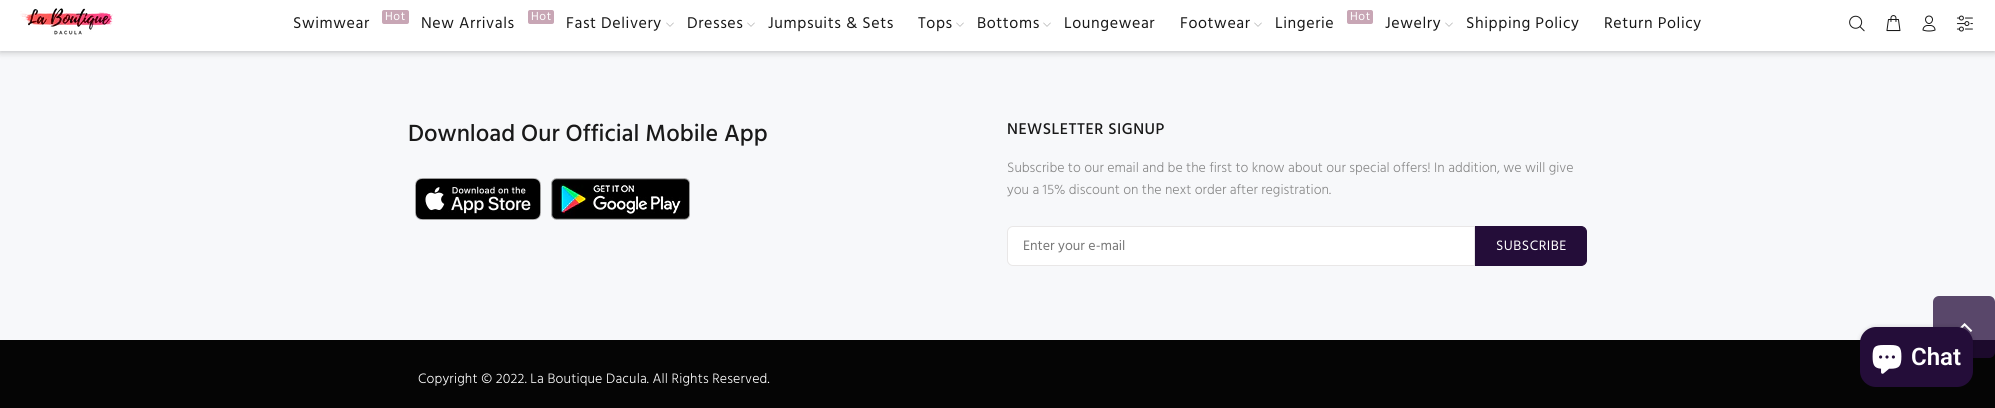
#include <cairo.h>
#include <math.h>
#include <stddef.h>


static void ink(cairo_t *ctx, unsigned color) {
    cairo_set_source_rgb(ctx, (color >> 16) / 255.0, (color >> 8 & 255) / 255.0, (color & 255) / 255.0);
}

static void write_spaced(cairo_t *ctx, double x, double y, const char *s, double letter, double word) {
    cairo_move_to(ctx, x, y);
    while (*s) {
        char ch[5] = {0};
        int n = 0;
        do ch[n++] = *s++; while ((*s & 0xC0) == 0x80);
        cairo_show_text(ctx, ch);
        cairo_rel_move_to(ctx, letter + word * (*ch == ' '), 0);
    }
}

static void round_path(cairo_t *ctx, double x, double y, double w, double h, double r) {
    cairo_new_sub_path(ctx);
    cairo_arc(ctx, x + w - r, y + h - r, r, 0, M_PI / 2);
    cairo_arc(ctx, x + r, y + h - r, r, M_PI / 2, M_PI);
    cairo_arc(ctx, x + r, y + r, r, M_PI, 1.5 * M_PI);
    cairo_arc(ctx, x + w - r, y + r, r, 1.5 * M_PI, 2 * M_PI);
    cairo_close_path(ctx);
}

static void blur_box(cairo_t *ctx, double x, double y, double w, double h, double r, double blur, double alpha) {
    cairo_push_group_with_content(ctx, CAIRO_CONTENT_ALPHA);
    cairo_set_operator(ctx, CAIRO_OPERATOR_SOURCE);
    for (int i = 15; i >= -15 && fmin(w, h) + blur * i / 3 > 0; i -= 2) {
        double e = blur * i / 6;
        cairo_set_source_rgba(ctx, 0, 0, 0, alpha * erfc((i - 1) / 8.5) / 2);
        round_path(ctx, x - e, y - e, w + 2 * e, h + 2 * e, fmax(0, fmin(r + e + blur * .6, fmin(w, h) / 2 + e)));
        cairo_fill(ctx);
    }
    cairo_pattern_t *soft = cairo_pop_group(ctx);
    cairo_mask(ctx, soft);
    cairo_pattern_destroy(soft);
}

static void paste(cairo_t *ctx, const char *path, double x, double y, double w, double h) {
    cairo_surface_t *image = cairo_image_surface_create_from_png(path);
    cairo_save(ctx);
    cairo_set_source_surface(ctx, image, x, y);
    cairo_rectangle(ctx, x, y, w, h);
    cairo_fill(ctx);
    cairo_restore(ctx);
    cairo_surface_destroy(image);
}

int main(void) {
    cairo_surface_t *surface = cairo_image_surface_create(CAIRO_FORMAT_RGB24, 1995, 408);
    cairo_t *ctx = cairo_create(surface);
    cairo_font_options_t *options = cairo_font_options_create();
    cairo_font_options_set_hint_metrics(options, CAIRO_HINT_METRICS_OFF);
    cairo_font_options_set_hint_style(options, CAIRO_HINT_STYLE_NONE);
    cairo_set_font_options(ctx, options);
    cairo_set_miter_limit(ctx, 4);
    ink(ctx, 0xF7F8FA);
    cairo_paint(ctx);
    ink(ctx, 0x000000);
    blur_box(ctx, 0, 0, 1995, 51, 0, 4, 0.3);
    ink(ctx, 0xFFFFFF);
    cairo_rectangle(ctx, 0, 0, 1995, 51);
    cairo_fill(ctx);
    paste(ctx, "media/1.png", 20, 8, 93, 27);
    cairo_select_font_face(ctx, "Hind", CAIRO_FONT_SLANT_NORMAL, CAIRO_FONT_WEIGHT_NORMAL);
    cairo_set_font_size(ctx, 16);
    ink(ctx, 0x191919);
    write_spaced(ctx, 293, 28, "Swimwear", 0.6, 0);
    ink(ctx, 0xC8A6B5);
    round_path(ctx, 382, 10, 27, 14, 2);
    cairo_fill(ctx);
    cairo_set_font_size(ctx, 12);
    ink(ctx, 0xFFFFFF);
    write_spaced(ctx, 385, 20, "Hot", 0.6, 0);
    cairo_set_font_size(ctx, 16);
    ink(ctx, 0x191919);
    write_spaced(ctx, 421, 28, "New Arrivals", 0.6, 0);
    ink(ctx, 0xC8A6B5);
    round_path(ctx, 528, 10, 26, 14, 2);
    cairo_fill(ctx);
    cairo_set_font_size(ctx, 12);
    ink(ctx, 0xFFFFFF);
    write_spaced(ctx, 531, 20, "Hot", 0.6, 0);
    cairo_set_font_size(ctx, 16);
    ink(ctx, 0x191919);
    write_spaced(ctx, 566, 28, "Fast Delivery", 0.6, 0);
    paste(ctx, "media/2.png", 666, 22, 8, 5);
    write_spaced(ctx, 687, 28, "Dresses", 0.6, 0);
    paste(ctx, "media/2.png", 747, 22, 8, 5);
    write_spaced(ctx, 768, 28, "Jumpsuits & Sets", 0.6, 0);
    write_spaced(ctx, 918, 28, "Tops", 0.6, 0);
    paste(ctx, "media/2.png", 956, 22, 8, 5);
    write_spaced(ctx, 977, 28, "Bottoms", 0.6, 0);
    paste(ctx, "media/2.png", 1043, 22, 8, 5);
    write_spaced(ctx, 1064, 28, "Loungewear", 0.6, 0);
    write_spaced(ctx, 1180, 28, "Footwear", 0.6, 0);
    paste(ctx, "media/2.png", 1254, 22, 8, 5);
    write_spaced(ctx, 1275, 28, "Lingerie", 0.6, 0);
    ink(ctx, 0xC8A6B5);
    round_path(ctx, 1347, 10, 26, 14, 2);
    cairo_fill(ctx);
    cairo_set_font_size(ctx, 12);
    ink(ctx, 0xFFFFFF);
    write_spaced(ctx, 1350, 20, "Hot", 0.6, 0);
    cairo_set_font_size(ctx, 16);
    ink(ctx, 0x191919);
    write_spaced(ctx, 1385, 28, "Jewelry", 0.6, 0);
    paste(ctx, "media/2.png", 1445, 22, 8, 5);
    write_spaced(ctx, 1466, 28, "Shipping Policy", 0.6, 0);
    write_spaced(ctx, 1604, 28, "Return Policy", 0.6, 0);
    paste(ctx, "media/3.png", 1849, 15, 16, 17);
    paste(ctx, "media/4.png", 1886, 15, 15, 17);
    paste(ctx, "media/5.png", 1922, 15, 14, 17);
    paste(ctx, "media/6.png", 1956, 15, 17, 17);
    cairo_select_font_face(ctx, "Hind Medium", CAIRO_FONT_SLANT_NORMAL, CAIRO_FONT_WEIGHT_NORMAL);
    cairo_set_font_size(ctx, 24);
    cairo_move_to(ctx, 408, 141);
    cairo_show_text(ctx, "Download Our Official Mobile App");
    paste(ctx, "media/7.png", 415, 178, 126, 42);
    paste(ctx, "media/8.png", 551, 178, 139, 42);
    cairo_set_font_size(ctx, 16);
    write_spaced(ctx, 1007, 134, "NEWSLETTER SIGNUP", 0.5, 0);
    cairo_select_font_face(ctx, "Hind Light", CAIRO_FONT_SLANT_NORMAL, CAIRO_FONT_WEIGHT_NORMAL);
    cairo_set_font_size(ctx, 14);
    ink(ctx, 0x888888);
    cairo_move_to(ctx, 1007, 172);
    cairo_show_text(ctx, "Subscribe to our email and be the first to know about our special offers! In addition, we will give");
    cairo_move_to(ctx, 1007, 194);
    cairo_show_text(ctx, "you a 15% discount on the next order after registration.");
    ink(ctx, 0xFFFFFF);
    cairo_new_path(ctx);
    cairo_move_to(ctx, 1013, 226.5);
    cairo_line_to(ctx, 1474.5, 226.5);
    cairo_line_to(ctx, 1474.5, 265.5);
    cairo_line_to(ctx, 1013, 265.5);
    cairo_curve_to(ctx, 1010, 265.5, 1007.5, 263, 1007.5, 260);
    cairo_line_to(ctx, 1007.5, 232);
    cairo_curve_to(ctx, 1007.5, 229, 1010, 226.5, 1013, 226.5);
    cairo_close_path(ctx);
    cairo_fill_preserve(ctx);
    ink(ctx, 0xE9E7E7);
    cairo_set_line_width(ctx, 1);
    cairo_stroke(ctx);
    cairo_select_font_face(ctx, "Hind", CAIRO_FONT_SLANT_NORMAL, CAIRO_FONT_WEIGHT_NORMAL);
    ink(ctx, 0x777777);
    cairo_move_to(ctx, 1023, 250);
    cairo_show_text(ctx, "Enter your e-mail");
    ink(ctx, 0x240D39);
    cairo_new_path(ctx);
    cairo_move_to(ctx, 1475.5, 226.5);
    cairo_line_to(ctx, 1581, 226.5);
    cairo_curve_to(ctx, 1584, 226.5, 1586.5, 229, 1586.5, 232);
    cairo_line_to(ctx, 1586.5, 260);
    cairo_curve_to(ctx, 1586.5, 263, 1584, 265.5, 1581, 265.5);
    cairo_line_to(ctx, 1475.5, 265.5);
    cairo_close_path(ctx);
    cairo_fill_preserve(ctx);
    cairo_stroke(ctx);
    ink(ctx, 0xFFFFFF);
    write_spaced(ctx, 1496, 250, "SUBSCRIBE", 0.5, 0);
    ink(ctx, 0x050505);
    cairo_rectangle(ctx, 0, 340, 1995, 68);
    cairo_fill(ctx);
    cairo_select_font_face(ctx, "Hind Light", CAIRO_FONT_SLANT_NORMAL, CAIRO_FONT_WEIGHT_NORMAL);
    ink(ctx, 0xFFFFFF);
    write_spaced(ctx, 418, 383, "Copyright © 2022. La Boutique Dacula. All Rights Reserved.", 0.15, 0);
    cairo_set_source_rgba(ctx, 0.141, 0.051, 0.224, 0.75);
    round_path(ctx, 1933, 296, 62, 62, 6);
    cairo_fill(ctx);
    paste(ctx, "media/9.png", 1959, 323, 14, 9);
    ink(ctx, 0x000000);
    blur_box(ctx, 1860, 327, 113, 60, 16, 2.5, 0.15);
    ink(ctx, 0x240D39);
    round_path(ctx, 1860, 327, 113, 60, 16);
    cairo_fill(ctx);
    paste(ctx, "media/10.png", 1872, 345, 30, 29);
    cairo_select_font_face(ctx, "Roboto SemiBold", CAIRO_FONT_SLANT_NORMAL, CAIRO_FONT_WEIGHT_NORMAL);
    cairo_set_font_size(ctx, 24);
    ink(ctx, 0xFFFFFF);
    cairo_move_to(ctx, 1911, 365);
    cairo_show_text(ctx, "Chat");
    cairo_surface_write_to_png(surface, "image.png");
    cairo_font_options_destroy(options);
    cairo_destroy(ctx);
    cairo_surface_destroy(surface);
    return 0;
}
